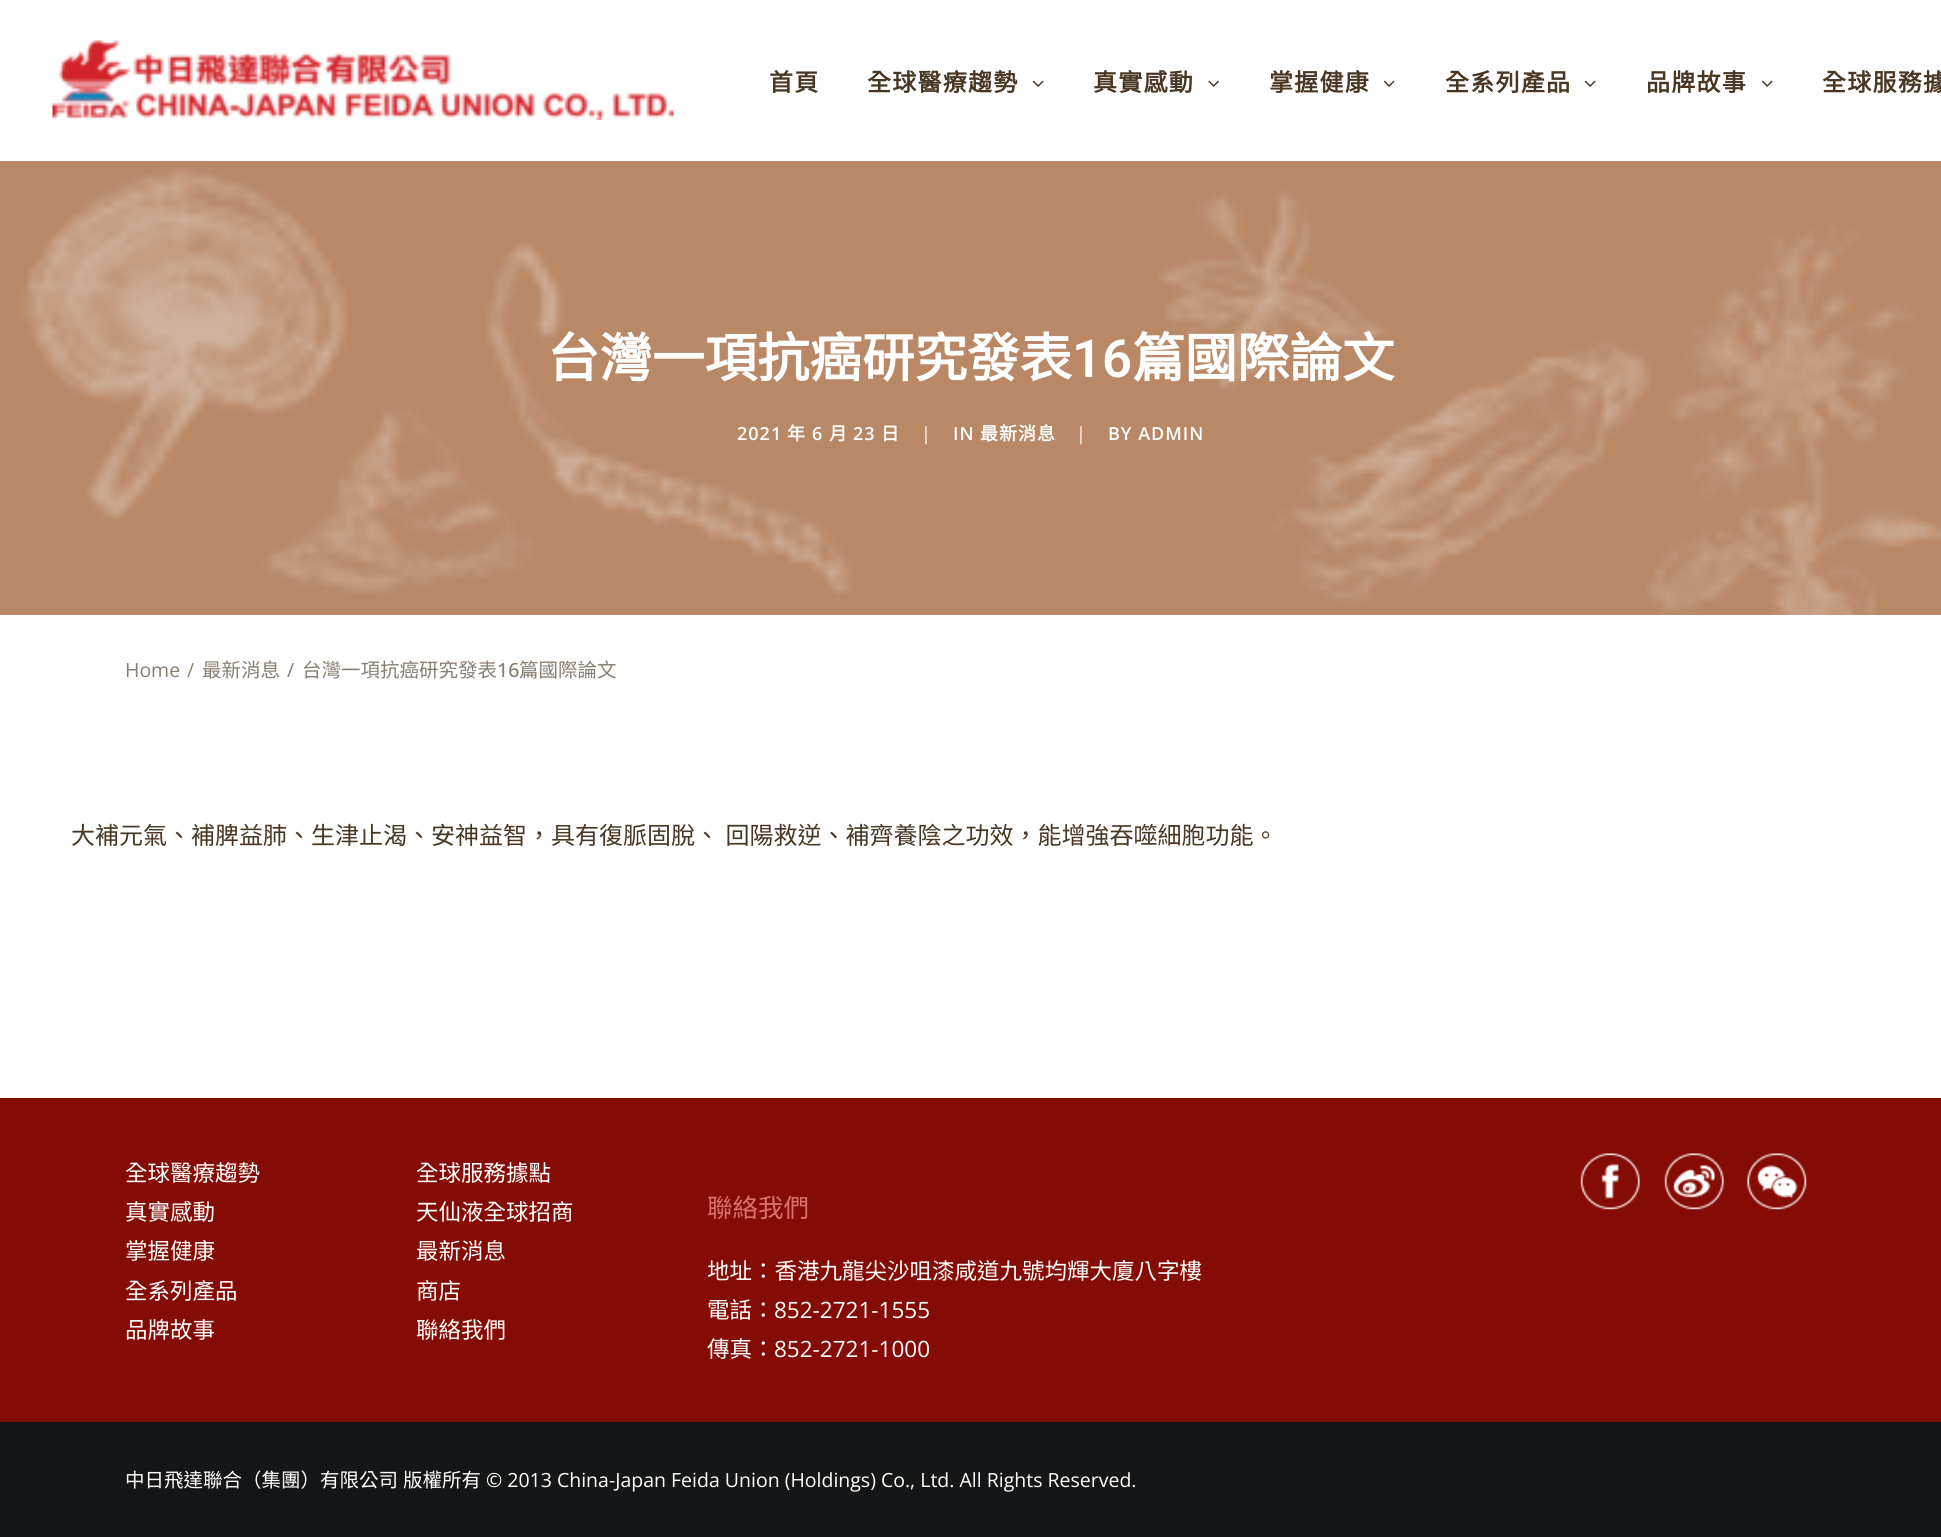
#include <cairo.h>
#include <math.h>
#include <stddef.h>

typedef struct { double x, y; const char *s; } line_t;

static void ink(cairo_t *ctx, unsigned color) {
    cairo_set_source_rgb(ctx, (color >> 16) / 255.0, (color >> 8 & 255) / 255.0, (color & 255) / 255.0);
}

static void write_spaced(cairo_t *ctx, double x, double y, const char *s, double letter, double word) {
    cairo_move_to(ctx, x, y);
    while (*s) {
        char ch[5] = {0};
        int n = 0;
        do ch[n++] = *s++; while ((*s & 0xC0) == 0x80);
        cairo_show_text(ctx, ch);
        cairo_rel_move_to(ctx, letter + word * (*ch == ' '), 0);
    }
}

static void paste(cairo_t *ctx, const char *path, double x, double y, double w, double h) {
    cairo_surface_t *image = cairo_image_surface_create_from_png(path);
    cairo_save(ctx);
    cairo_set_source_surface(ctx, image, x, y);
    cairo_rectangle(ctx, x, y, w, h);
    cairo_fill(ctx);
    cairo_restore(ctx);
    cairo_surface_destroy(image);
}

int main(void) {
    cairo_surface_t *surface = cairo_image_surface_create(CAIRO_FORMAT_RGB24, 1941, 1537);
    cairo_t *ctx = cairo_create(surface);
    cairo_font_options_t *options = cairo_font_options_create();
    cairo_font_options_set_hint_metrics(options, CAIRO_HINT_METRICS_OFF);
    cairo_font_options_set_hint_style(options, CAIRO_HINT_STYLE_NONE);
    cairo_set_font_options(ctx, options);
    cairo_set_miter_limit(ctx, 4);
    ink(ctx, 0xFFFFFF);
    cairo_paint(ctx);
    paste(ctx, "media/1.png", 52, 40, 622, 80);
    cairo_select_font_face(ctx, "Noto Sans CJK TC", CAIRO_FONT_SLANT_NORMAL, CAIRO_FONT_WEIGHT_BOLD);
    cairo_set_font_size(ctx, 24);
    ink(ctx, 0x493724);
    write_spaced(ctx, 769, 91, "首頁", 1.25, 0);
    write_spaced(ctx, 867, 91, "全球醫療趨勢", 1.25, 0);
    paste(ctx, "media/2.png", 1032, 80, 12, 7);
    write_spaced(ctx, 1093, 91, "真實感動", 1.25, 0);
    paste(ctx, "media/3.png", 1208, 80, 11, 7);
    write_spaced(ctx, 1269, 91, "掌握健康", 1.25, 0);
    paste(ctx, "media/2.png", 1383, 80, 12, 7);
    write_spaced(ctx, 1445, 91, "全系列產品", 1.25, 0);
    paste(ctx, "media/2.png", 1584, 80, 12, 7);
    write_spaced(ctx, 1646, 91, "品牌故事", 1.25, 0);
    paste(ctx, "media/2.png", 1761, 80, 12, 7);
    write_spaced(ctx, 1822, 91, "全球服務據", 1.25, 0);
    paste(ctx, "media/4.png", 0, 161, 1941, 454);
    cairo_set_font_size(ctx, 52.5);
    ink(ctx, 0xFFFFFF);
    cairo_move_to(ctx, 547, 377);
    cairo_show_text(ctx, "台灣一項抗癌研究發表");
    cairo_select_font_face(ctx, "Roboto SemiBold", CAIRO_FONT_SLANT_NORMAL, CAIRO_FONT_WEIGHT_NORMAL);
    cairo_move_to(ctx, 1072, 377);
    cairo_show_text(ctx, "16");
    cairo_select_font_face(ctx, "Noto Sans CJK TC", CAIRO_FONT_SLANT_NORMAL, CAIRO_FONT_WEIGHT_BOLD);
    cairo_move_to(ctx, 1132, 377);
    cairo_show_text(ctx, "篇國際論文");
    cairo_select_font_face(ctx, "Open Sans SemiBold", CAIRO_FONT_SLANT_NORMAL, CAIRO_FONT_WEIGHT_NORMAL);
    cairo_set_font_size(ctx, 18);
    write_spaced(ctx, 737, 440, "2021", 1, 0);
    cairo_select_font_face(ctx, "Noto Sans CJK TC", CAIRO_FONT_SLANT_NORMAL, CAIRO_FONT_WEIGHT_BOLD);
    write_spaced(ctx, 787, 440, "年", 1, 0);
    cairo_select_font_face(ctx, "Open Sans SemiBold", CAIRO_FONT_SLANT_NORMAL, CAIRO_FONT_WEIGHT_NORMAL);
    write_spaced(ctx, 812, 440, "6", 1, 0);
    cairo_select_font_face(ctx, "Noto Sans CJK TC", CAIRO_FONT_SLANT_NORMAL, CAIRO_FONT_WEIGHT_BOLD);
    write_spaced(ctx, 829, 440, "月", 1, 0);
    cairo_select_font_face(ctx, "Open Sans SemiBold", CAIRO_FONT_SLANT_NORMAL, CAIRO_FONT_WEIGHT_NORMAL);
    write_spaced(ctx, 853, 440, "23", 1, 0);
    cairo_select_font_face(ctx, "Noto Sans CJK TC", CAIRO_FONT_SLANT_NORMAL, CAIRO_FONT_WEIGHT_BOLD);
    write_spaced(ctx, 881, 440, "日", 1, 0);
    cairo_select_font_face(ctx, "Open Sans", CAIRO_FONT_SLANT_NORMAL, CAIRO_FONT_WEIGHT_NORMAL);
    write_spaced(ctx, 921, 440, "|", 1, 0);
    cairo_select_font_face(ctx, "Open Sans SemiBold", CAIRO_FONT_SLANT_NORMAL, CAIRO_FONT_WEIGHT_NORMAL);
    write_spaced(ctx, 953, 440, "IN", 1, 0);
    cairo_select_font_face(ctx, "Noto Sans CJK TC", CAIRO_FONT_SLANT_NORMAL, CAIRO_FONT_WEIGHT_BOLD);
    write_spaced(ctx, 980, 440, "最新消息", 1, 0);
    cairo_select_font_face(ctx, "Open Sans", CAIRO_FONT_SLANT_NORMAL, CAIRO_FONT_WEIGHT_NORMAL);
    write_spaced(ctx, 1076, 440, "|", 1, 0);
    cairo_select_font_face(ctx, "Open Sans SemiBold", CAIRO_FONT_SLANT_NORMAL, CAIRO_FONT_WEIGHT_NORMAL);
    write_spaced(ctx, 1108, 440, "BY ADMIN", 1, 0);
    cairo_select_font_face(ctx, "Open Sans", CAIRO_FONT_SLANT_NORMAL, CAIRO_FONT_WEIGHT_NORMAL);
    cairo_set_font_size(ctx, 19.5);
    ink(ctx, 0x897D71);
    cairo_move_to(ctx, 125, 677);
    cairo_show_text(ctx, "Home");
    cairo_move_to(ctx, 187, 677);
    cairo_show_text(ctx, "/");
    cairo_select_font_face(ctx, "Noto Sans CJK TC", CAIRO_FONT_SLANT_NORMAL, CAIRO_FONT_WEIGHT_NORMAL);
    cairo_move_to(ctx, 202, 677);
    cairo_show_text(ctx, "最新消息");
    cairo_select_font_face(ctx, "Open Sans", CAIRO_FONT_SLANT_NORMAL, CAIRO_FONT_WEIGHT_NORMAL);
    cairo_move_to(ctx, 287, 677);
    cairo_show_text(ctx, "/");
    cairo_select_font_face(ctx, "Noto Sans CJK TC", CAIRO_FONT_SLANT_NORMAL, CAIRO_FONT_WEIGHT_NORMAL);
    cairo_move_to(ctx, 302, 677);
    cairo_show_text(ctx, "台灣一項抗癌研究發表");
    cairo_select_font_face(ctx, "Open Sans Medium", CAIRO_FONT_SLANT_NORMAL, CAIRO_FONT_WEIGHT_NORMAL);
    cairo_move_to(ctx, 497, 677);
    cairo_show_text(ctx, "16");
    cairo_select_font_face(ctx, "Noto Sans CJK TC", CAIRO_FONT_SLANT_NORMAL, CAIRO_FONT_WEIGHT_NORMAL);
    cairo_move_to(ctx, 519, 677);
    cairo_show_text(ctx, "篇國際論文");
    cairo_set_font_size(ctx, 24);
    ink(ctx, 0x493724);
    write_spaced(ctx, 71, 844, "大補元氣、補脾益肺、生津止渴、安神益智，具有復脈固脫、 回陽救逆、補齊養陰之功效，能增強吞噬細胞功能。", 0, 1);
    ink(ctx, 0x840C04);
    cairo_rectangle(ctx, 0, 1098, 1941, 324);
    cairo_fill(ctx);
    cairo_set_font_size(ctx, 22.5);
    ink(ctx, 0xFFFFFF);
    {
        static const line_t items[] = {
            {125, 1181, "全球醫療趨勢"},
            {125, 1220, "真實感動"},
            {125, 1259, "掌握健康"},
            {125, 1299, "全系列產品"},
            {125, 1338, "品牌故事"},
            {416, 1181, "全球服務據點"},
            {416, 1220, "天仙液全球招商"},
            {416, 1259, "最新消息"},
            {416, 1299, "商店"},
            {416, 1338, "聯絡我們"},
        };
        for (size_t i = 0; i < sizeof items / sizeof *items; i++) {
            cairo_move_to(ctx, items[i].x, items[i].y);
            cairo_show_text(ctx, items[i].s);
        }
    }
    cairo_set_font_size(ctx, 25.5);
    ink(ctx, 0xDA716A);
    cairo_move_to(ctx, 707, 1217);
    cairo_show_text(ctx, "聯絡我們");
    cairo_set_font_size(ctx, 22.5);
    ink(ctx, 0xFFFFFF);
    cairo_move_to(ctx, 707, 1279);
    cairo_show_text(ctx, "地址：香港九龍尖沙咀漆咸道九號均輝大廈八字樓");
    cairo_move_to(ctx, 707, 1318);
    cairo_show_text(ctx, "電話：");
    cairo_select_font_face(ctx, "Open Sans", CAIRO_FONT_SLANT_NORMAL, CAIRO_FONT_WEIGHT_NORMAL);
    cairo_move_to(ctx, 774, 1318);
    cairo_show_text(ctx, "852-2721-1555");
    cairo_select_font_face(ctx, "Noto Sans CJK TC", CAIRO_FONT_SLANT_NORMAL, CAIRO_FONT_WEIGHT_NORMAL);
    cairo_move_to(ctx, 707, 1357);
    cairo_show_text(ctx, "傳真：");
    cairo_select_font_face(ctx, "Open Sans", CAIRO_FONT_SLANT_NORMAL, CAIRO_FONT_WEIGHT_NORMAL);
    cairo_move_to(ctx, 774, 1357);
    cairo_show_text(ctx, "852-2721-1000");
    paste(ctx, "media/5.png", 1580, 1153, 227, 57);
    ink(ctx, 0x141618);
    cairo_rectangle(ctx, 0, 1422, 1941, 115);
    cairo_fill(ctx);
    cairo_select_font_face(ctx, "Noto Sans CJK TC", CAIRO_FONT_SLANT_NORMAL, CAIRO_FONT_WEIGHT_NORMAL);
    cairo_set_font_size(ctx, 19.5);
    ink(ctx, 0xFFFFFF);
    cairo_move_to(ctx, 125, 1487);
    cairo_show_text(ctx, "中日飛達聯合（集團）有限公司");
    cairo_move_to(ctx, 403, 1487);
    cairo_show_text(ctx, "版權所有");
    cairo_select_font_face(ctx, "Open Sans", CAIRO_FONT_SLANT_NORMAL, CAIRO_FONT_WEIGHT_NORMAL);
    cairo_move_to(ctx, 486, 1487);
    cairo_show_text(ctx, "© 2013 China-Japan Feida Union (Holdings) Co., Ltd. All Rights Reserved.");
    cairo_surface_write_to_png(surface, "image.png");
    cairo_font_options_destroy(options);
    cairo_destroy(ctx);
    cairo_surface_destroy(surface);
    return 0;
}
